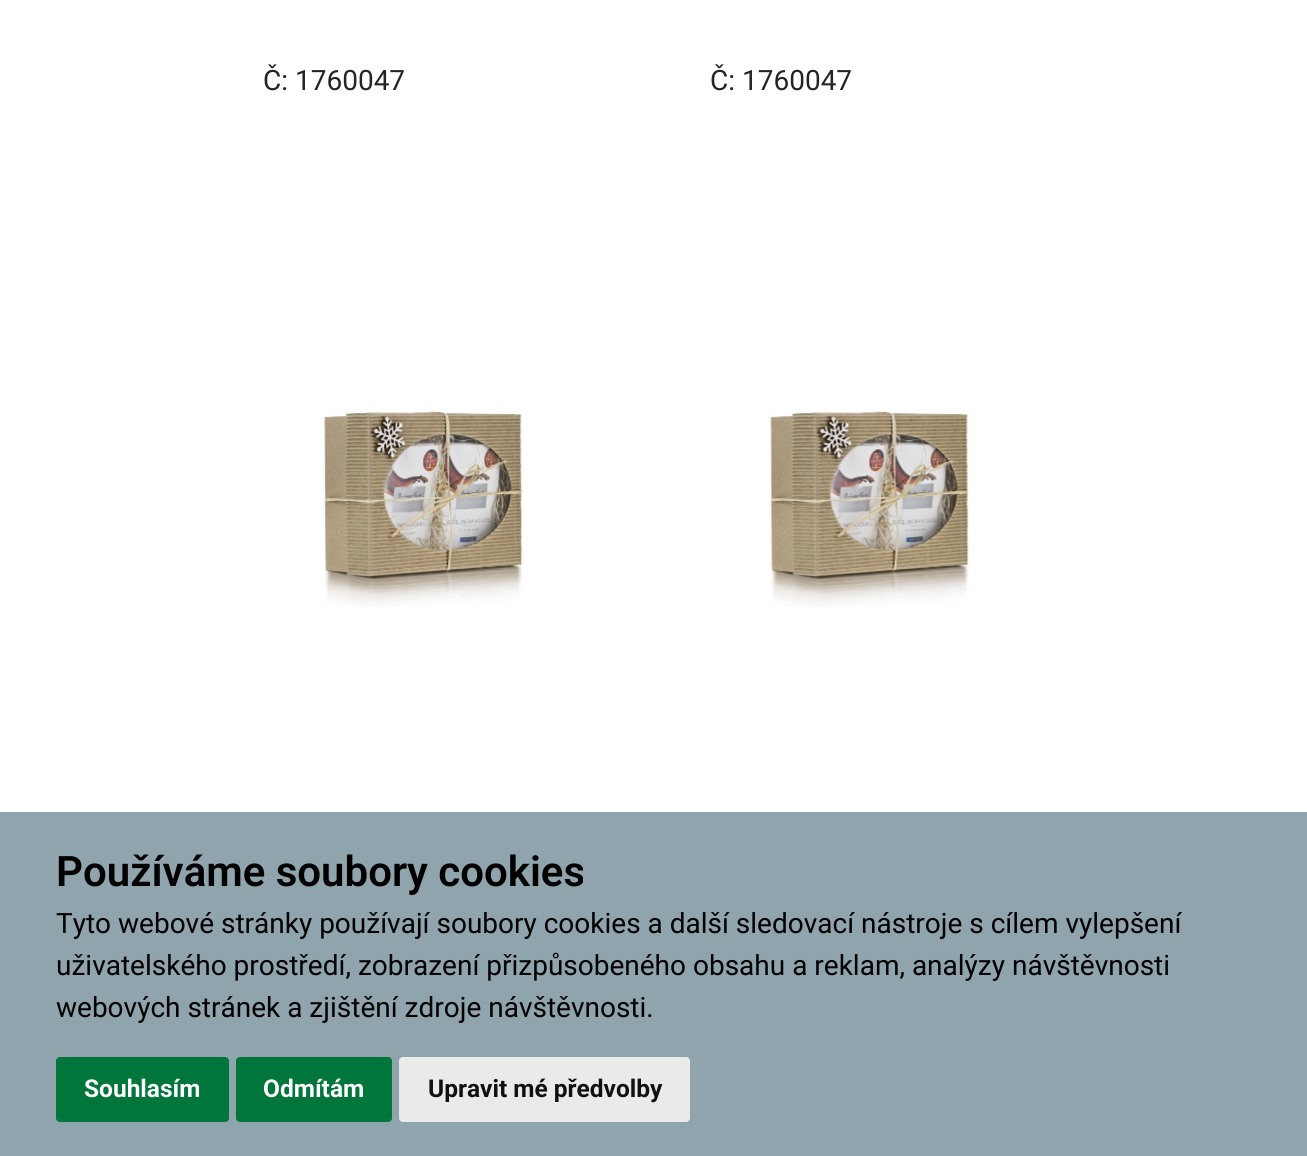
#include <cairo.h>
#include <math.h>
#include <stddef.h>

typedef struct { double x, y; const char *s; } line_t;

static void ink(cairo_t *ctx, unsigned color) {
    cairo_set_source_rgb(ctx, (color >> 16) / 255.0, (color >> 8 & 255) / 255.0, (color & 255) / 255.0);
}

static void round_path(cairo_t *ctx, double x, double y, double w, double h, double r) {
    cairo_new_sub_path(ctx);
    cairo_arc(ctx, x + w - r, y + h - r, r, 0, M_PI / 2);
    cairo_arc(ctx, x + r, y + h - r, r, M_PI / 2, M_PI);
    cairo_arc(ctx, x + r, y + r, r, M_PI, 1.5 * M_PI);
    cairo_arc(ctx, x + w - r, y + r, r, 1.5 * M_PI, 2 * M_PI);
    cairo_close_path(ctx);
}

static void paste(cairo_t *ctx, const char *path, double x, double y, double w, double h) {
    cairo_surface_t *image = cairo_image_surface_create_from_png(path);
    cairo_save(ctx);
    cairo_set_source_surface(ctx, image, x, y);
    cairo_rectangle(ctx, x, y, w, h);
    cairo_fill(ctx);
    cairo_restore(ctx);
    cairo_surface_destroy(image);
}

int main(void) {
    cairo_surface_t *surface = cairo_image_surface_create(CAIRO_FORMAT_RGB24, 1307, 1156);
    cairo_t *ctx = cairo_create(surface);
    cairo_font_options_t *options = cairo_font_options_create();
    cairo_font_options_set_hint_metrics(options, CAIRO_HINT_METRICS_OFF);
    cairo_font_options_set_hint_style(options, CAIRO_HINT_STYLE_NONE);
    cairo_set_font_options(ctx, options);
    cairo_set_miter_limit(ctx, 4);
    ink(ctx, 0xFFFFFF);
    cairo_paint(ctx);
    cairo_select_font_face(ctx, "Roboto", CAIRO_FONT_SLANT_NORMAL, CAIRO_FONT_WEIGHT_NORMAL);
    cairo_set_font_size(ctx, 28);
    ink(ctx, 0x212529);
    cairo_move_to(ctx, 263, 90);
    cairo_show_text(ctx, "Č: 1760047");
    paste(ctx, "media/1.png", 323, 411, 200, 196);
    cairo_move_to(ctx, 710, 90);
    cairo_show_text(ctx, "Č: 1760047");
    paste(ctx, "media/2.png", 769, 411, 200, 196);
    ink(ctx, 0x90A4AE);
    cairo_rectangle(ctx, 0, 812, 1307, 344);
    cairo_fill(ctx);
    cairo_select_font_face(ctx, "Roboto SemiBold", CAIRO_FONT_SLANT_NORMAL, CAIRO_FONT_WEIGHT_NORMAL);
    cairo_set_font_size(ctx, 42);
    ink(ctx, 0x000000);
    cairo_move_to(ctx, 56, 886);
    cairo_show_text(ctx, "Používáme soubory cookies");
    cairo_select_font_face(ctx, "Roboto", CAIRO_FONT_SLANT_NORMAL, CAIRO_FONT_WEIGHT_NORMAL);
    cairo_set_font_size(ctx, 28);
    {
        static const line_t items[] = {
            {56, 933, "Tyto webové stránky používají soubory cookies a další sledovací nástroje s cílem vylepšení"},
            {56, 975, "uživatelského prostředí, zobrazení přizpůsobeného obsahu a reklam, analýzy návštěvnosti"},
            {56, 1017, "webových stránek a zjištění zdroje návštěvnosti."},
        };
        for (size_t i = 0; i < sizeof items / sizeof *items; i++) {
            cairo_move_to(ctx, items[i].x, items[i].y);
            cairo_show_text(ctx, items[i].s);
        }
    }
    ink(ctx, 0x00763A);
    round_path(ctx, 56, 1057, 173, 65, 4);
    cairo_fill(ctx);
    cairo_select_font_face(ctx, "Roboto", CAIRO_FONT_SLANT_NORMAL, CAIRO_FONT_WEIGHT_BOLD);
    cairo_set_font_size(ctx, 24.5);
    ink(ctx, 0xFFFFFF);
    cairo_move_to(ctx, 84, 1097);
    cairo_show_text(ctx, "Souhlasím");
    ink(ctx, 0x00763A);
    round_path(ctx, 236, 1057, 156, 65, 4);
    cairo_fill(ctx);
    ink(ctx, 0xFFFFFF);
    cairo_move_to(ctx, 263, 1097);
    cairo_show_text(ctx, "Odmítám");
    ink(ctx, 0xEAEAEA);
    round_path(ctx, 399, 1057, 291, 65, 4);
    cairo_fill(ctx);
    ink(ctx, 0x111111);
    cairo_move_to(ctx, 428, 1097);
    cairo_show_text(ctx, "Upravit mé předvolby");
    cairo_surface_write_to_png(surface, "image.png");
    cairo_font_options_destroy(options);
    cairo_destroy(ctx);
    cairo_surface_destroy(surface);
    return 0;
}
